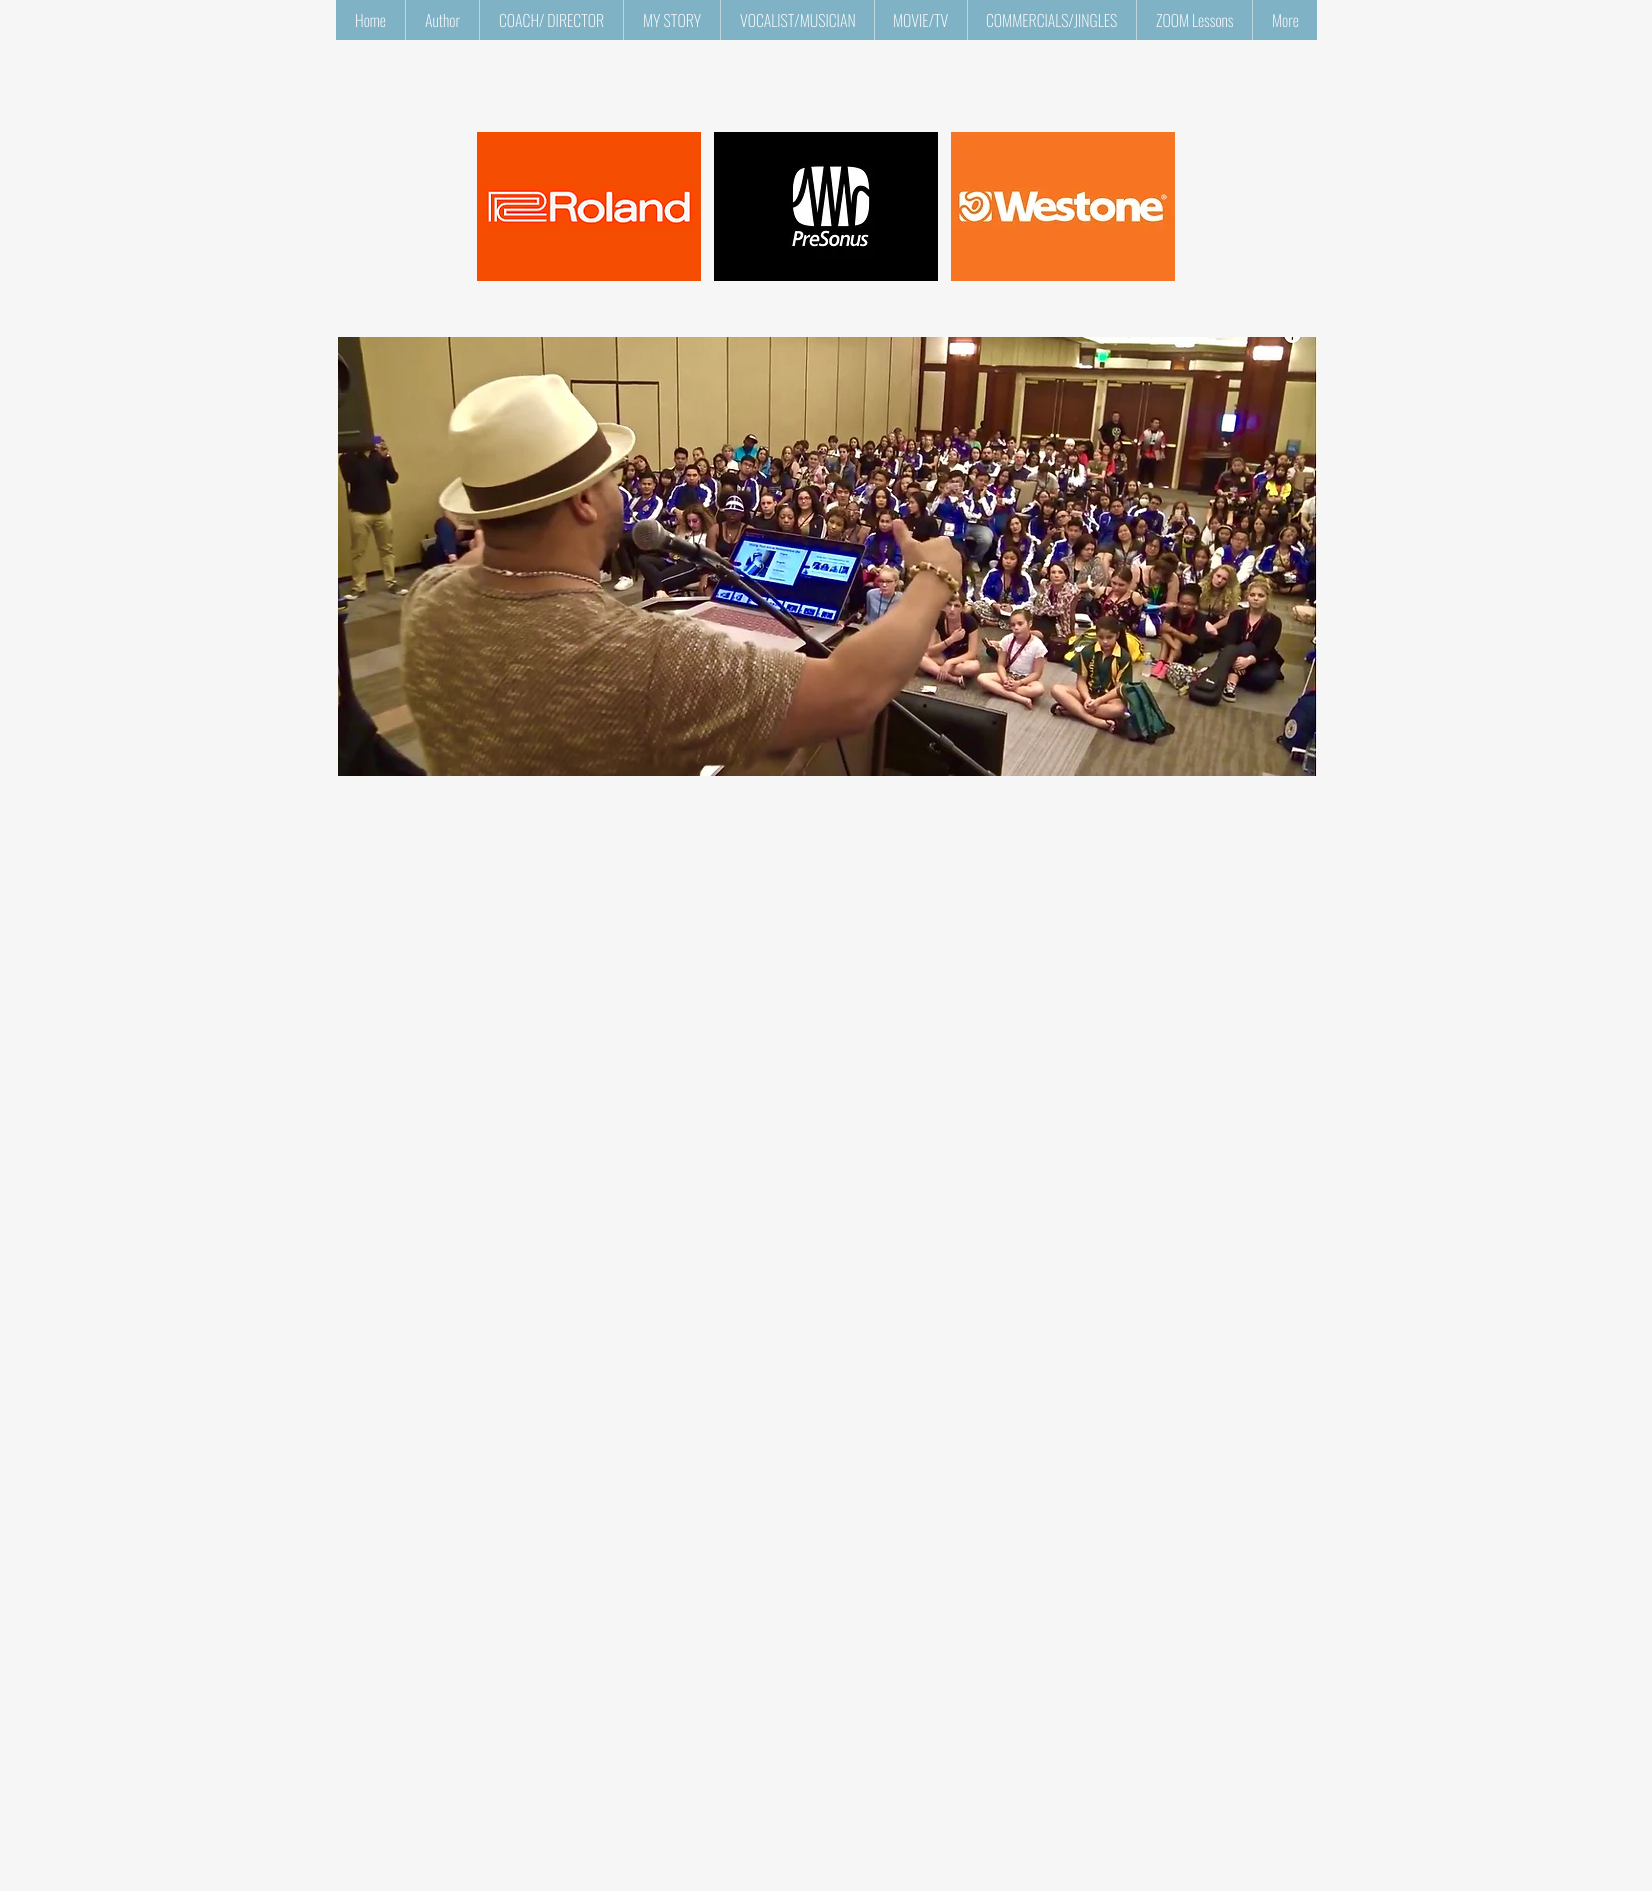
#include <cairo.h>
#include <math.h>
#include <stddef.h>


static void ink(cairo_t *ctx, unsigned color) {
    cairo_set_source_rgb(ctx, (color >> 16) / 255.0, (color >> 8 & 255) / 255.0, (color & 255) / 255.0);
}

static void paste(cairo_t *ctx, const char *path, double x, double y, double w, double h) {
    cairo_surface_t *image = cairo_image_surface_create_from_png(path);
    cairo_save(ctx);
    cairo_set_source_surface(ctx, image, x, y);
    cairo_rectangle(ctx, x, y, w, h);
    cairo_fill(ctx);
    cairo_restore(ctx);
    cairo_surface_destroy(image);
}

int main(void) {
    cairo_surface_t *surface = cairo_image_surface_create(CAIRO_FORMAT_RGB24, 1652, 1891);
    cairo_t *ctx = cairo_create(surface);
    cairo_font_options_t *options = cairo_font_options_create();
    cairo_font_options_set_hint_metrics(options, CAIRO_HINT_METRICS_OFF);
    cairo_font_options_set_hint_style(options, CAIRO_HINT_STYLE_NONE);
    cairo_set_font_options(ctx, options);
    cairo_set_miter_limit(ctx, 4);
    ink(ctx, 0xF6F6F6);
    cairo_paint(ctx);
    ink(ctx, 0x80B2C5);
    cairo_rectangle(ctx, 336, 0, 981, 40);
    cairo_fill(ctx);
    cairo_select_font_face(ctx, "Oswald ExtraLight", CAIRO_FONT_SLANT_NORMAL, CAIRO_FONT_WEIGHT_NORMAL);
    cairo_set_font_size(ctx, 16);
    ink(ctx, 0xFFFFFF);
    cairo_move_to(ctx, 355, 27);
    cairo_show_text(ctx, "Home");
    ink(ctx, 0xBFD6DF);
    cairo_rectangle(ctx, 405, 0, 1, 40);
    cairo_fill(ctx);
    ink(ctx, 0xFFFFFF);
    cairo_move_to(ctx, 425, 27);
    cairo_show_text(ctx, "Author");
    ink(ctx, 0xBFD6DF);
    cairo_rectangle(ctx, 479, 0, 1, 40);
    cairo_fill(ctx);
    ink(ctx, 0xFFFFFF);
    cairo_move_to(ctx, 499, 27);
    cairo_show_text(ctx, "COACH/ DIRECTOR");
    ink(ctx, 0xBFD6DF);
    cairo_rectangle(ctx, 623, 0, 1, 40);
    cairo_fill(ctx);
    ink(ctx, 0xFFFFFF);
    cairo_move_to(ctx, 643, 27);
    cairo_show_text(ctx, "MY STORY");
    ink(ctx, 0xBFD6DF);
    cairo_rectangle(ctx, 720, 0, 1, 40);
    cairo_fill(ctx);
    ink(ctx, 0xFFFFFF);
    cairo_move_to(ctx, 740, 27);
    cairo_show_text(ctx, "VOCALIST/MUSICIAN");
    ink(ctx, 0xBFD6DF);
    cairo_rectangle(ctx, 874, 0, 1, 40);
    cairo_fill(ctx);
    ink(ctx, 0xFFFFFF);
    cairo_move_to(ctx, 893, 27);
    cairo_show_text(ctx, "MOVIE/TV");
    ink(ctx, 0xBFD6DF);
    cairo_rectangle(ctx, 967, 0, 1, 40);
    cairo_fill(ctx);
    ink(ctx, 0xFFFFFF);
    cairo_move_to(ctx, 986, 27);
    cairo_show_text(ctx, "COMMERCIALS/JINGLES");
    ink(ctx, 0xBFD6DF);
    cairo_rectangle(ctx, 1136, 0, 1, 40);
    cairo_fill(ctx);
    ink(ctx, 0xFFFFFF);
    cairo_move_to(ctx, 1156, 27);
    cairo_show_text(ctx, "ZOOM Lessons");
    ink(ctx, 0xBFD6DF);
    cairo_rectangle(ctx, 1252, 0, 1, 40);
    cairo_fill(ctx);
    ink(ctx, 0xFFFFFF);
    cairo_move_to(ctx, 1272, 27);
    cairo_show_text(ctx, "More");
    paste(ctx, "media/1.png", 477, 132, 224, 149);
    paste(ctx, "media/2.png", 714, 132, 224, 149);
    paste(ctx, "media/3.png", 951, 132, 224, 149);
    paste(ctx, "media/4.png", 338, 337, 979, 439);
    cairo_surface_write_to_png(surface, "image.png");
    cairo_font_options_destroy(options);
    cairo_destroy(ctx);
    cairo_surface_destroy(surface);
    return 0;
}
